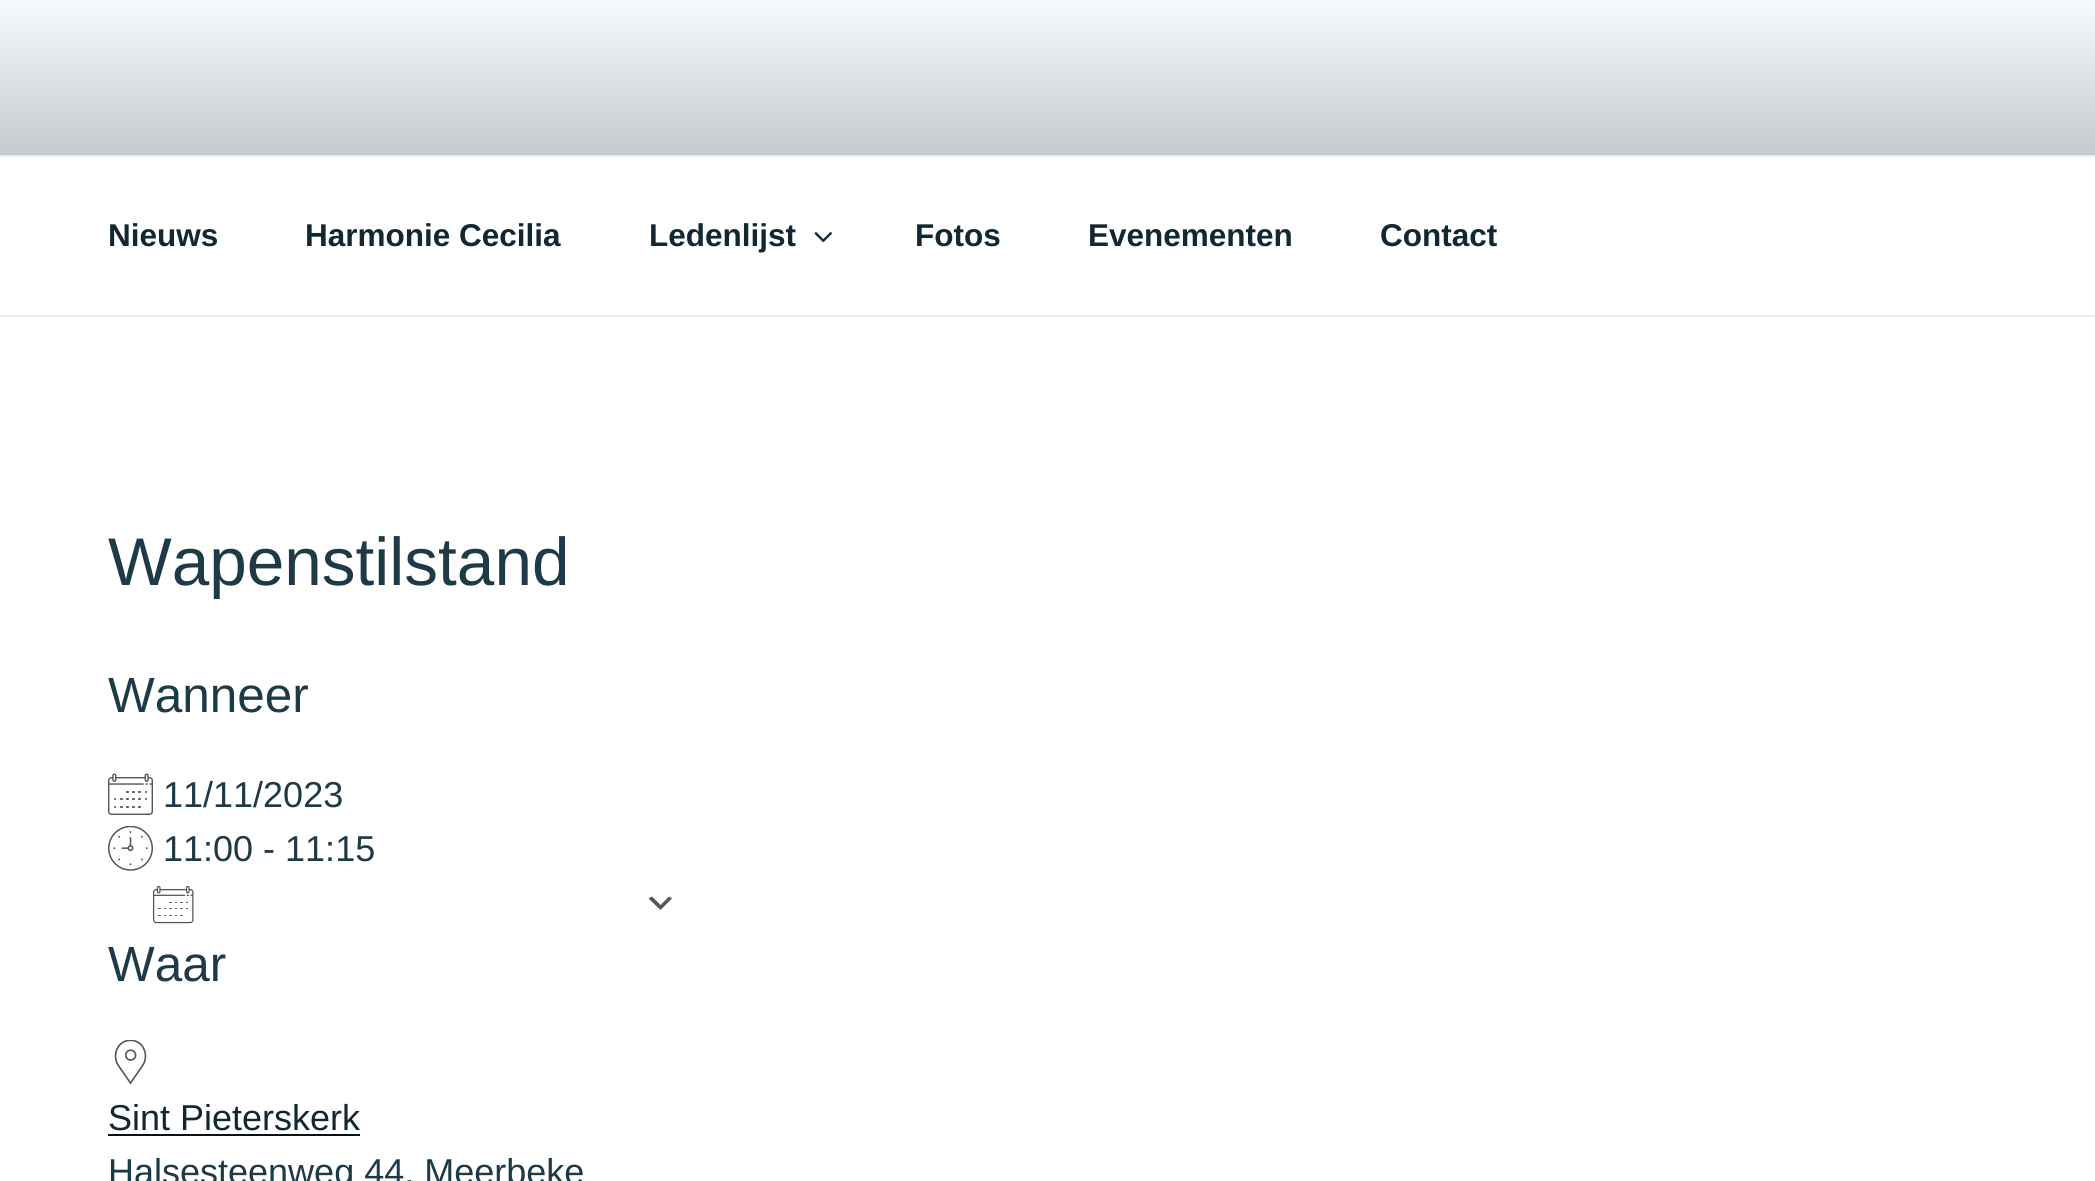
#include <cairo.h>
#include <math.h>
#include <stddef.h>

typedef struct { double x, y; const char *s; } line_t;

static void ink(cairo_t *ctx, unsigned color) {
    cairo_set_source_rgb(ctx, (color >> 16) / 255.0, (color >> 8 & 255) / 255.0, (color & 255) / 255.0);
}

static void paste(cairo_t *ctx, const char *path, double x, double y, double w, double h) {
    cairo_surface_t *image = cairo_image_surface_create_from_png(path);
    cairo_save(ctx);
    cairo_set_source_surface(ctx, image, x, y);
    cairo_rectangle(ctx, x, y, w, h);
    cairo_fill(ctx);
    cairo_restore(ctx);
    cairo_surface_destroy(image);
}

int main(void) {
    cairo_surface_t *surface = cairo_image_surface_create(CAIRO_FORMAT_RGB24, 2095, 1181);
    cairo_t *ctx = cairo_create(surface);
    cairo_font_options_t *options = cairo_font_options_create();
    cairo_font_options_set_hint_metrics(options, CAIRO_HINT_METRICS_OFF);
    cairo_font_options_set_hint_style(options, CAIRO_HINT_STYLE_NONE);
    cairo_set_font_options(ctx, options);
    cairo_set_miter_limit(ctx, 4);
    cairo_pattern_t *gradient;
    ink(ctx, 0xFFFFFF);
    cairo_paint(ctx);
    gradient = cairo_pattern_create_linear(1049, 0, 1049, 317);
    cairo_pattern_add_color_stop_rgba(gradient, 0, 0.965, 0.984, 0.996, 1);
    cairo_pattern_add_color_stop_rgba(gradient, 0.75, 0.675, 0.69, 0.698, 1);
    cairo_pattern_add_color_stop_rgba(gradient, 1, 0.675, 0.69, 0.698, 1);
    cairo_set_source(ctx, gradient);
    cairo_pattern_destroy(gradient);
    cairo_rectangle(ctx, 0, 0, 2095, 155);
    cairo_fill(ctx);
    ink(ctx, 0xE4F0F6);
    cairo_rectangle(ctx, 0, 155, 2095, 2);
    cairo_fill(ctx);
    cairo_rectangle(ctx, 0, 315, 2095, 2);
    cairo_fill(ctx);
    cairo_select_font_face(ctx, "Liberation Sans", CAIRO_FONT_SLANT_NORMAL, CAIRO_FONT_WEIGHT_BOLD);
    cairo_set_font_size(ctx, 31.5);
    ink(ctx, 0x112732);
    {
        static const line_t items[] = {
            {108, 246, "Nieuws"},
            {305, 246, "Harmonie Cecilia"},
            {649, 246, "Ledenlijst"},
        };
        for (size_t i = 0; i < sizeof items / sizeof *items; i++) {
            cairo_move_to(ctx, items[i].x, items[i].y);
            cairo_show_text(ctx, items[i].s);
        }
    }
    paste(ctx, "media/1.png", 814, 232, 18, 11);
    {
        static const line_t items[] = {
            {915, 246, "Fotos"},
            {1088, 246, "Evenementen"},
            {1380, 246, "Contact"},
        };
        for (size_t i = 0; i < sizeof items / sizeof *items; i++) {
            cairo_move_to(ctx, items[i].x, items[i].y);
            cairo_show_text(ctx, items[i].s);
        }
    }
    cairo_select_font_face(ctx, "Liberation Sans", CAIRO_FONT_SLANT_NORMAL, CAIRO_FONT_WEIGHT_NORMAL);
    cairo_set_font_size(ctx, 67.5);
    ink(ctx, 0x1F3A47);
    cairo_move_to(ctx, 108, 585);
    cairo_show_text(ctx, "Wapenstilstand");
    cairo_set_font_size(ctx, 49.5);
    cairo_move_to(ctx, 108, 712);
    cairo_show_text(ctx, "Wanneer");
    paste(ctx, "media/2.png", 108, 773, 45, 42);
    cairo_set_font_size(ctx, 36);
    cairo_move_to(ctx, 163, 807);
    cairo_show_text(ctx, "11/11/2023");
    paste(ctx, "media/3.png", 108, 826, 45, 45);
    cairo_move_to(ctx, 163, 861);
    cairo_show_text(ctx, "11:00 - 11:15");
    ink(ctx, 0x555555);
    cairo_new_path(ctx);
    cairo_move_to(ctx, 652, 896.5);
    cairo_line_to(ctx, 660.5, 905);
    cairo_line_to(ctx, 669, 896.5);
    cairo_line_to(ctx, 672, 898.5);
    cairo_line_to(ctx, 660.5, 910);
    cairo_line_to(ctx, 648.5, 898.5);
    cairo_close_path(ctx);
    cairo_fill(ctx);
    paste(ctx, "media/4.png", 153, 885, 41, 39);
    cairo_set_font_size(ctx, 49.5);
    ink(ctx, 0x1F3A47);
    cairo_move_to(ctx, 108, 981);
    cairo_show_text(ctx, "Waar");
    paste(ctx, "media/5.png", 114, 1040, 33, 45);
    cairo_set_font_size(ctx, 36);
    ink(ctx, 0x112732);
    cairo_move_to(ctx, 108, 1130);
    cairo_show_text(ctx, "Sint Pieterskerk");
    ink(ctx, 0x081217);
    cairo_rectangle(ctx, 108, 1134, 252, 2);
    cairo_fill(ctx);
    ink(ctx, 0x1F3A47);
    cairo_move_to(ctx, 108, 1184);
    cairo_show_text(ctx, "Halsesteenweg 44, Meerbeke");
    cairo_surface_write_to_png(surface, "image.png");
    cairo_font_options_destroy(options);
    cairo_destroy(ctx);
    cairo_surface_destroy(surface);
    return 0;
}
